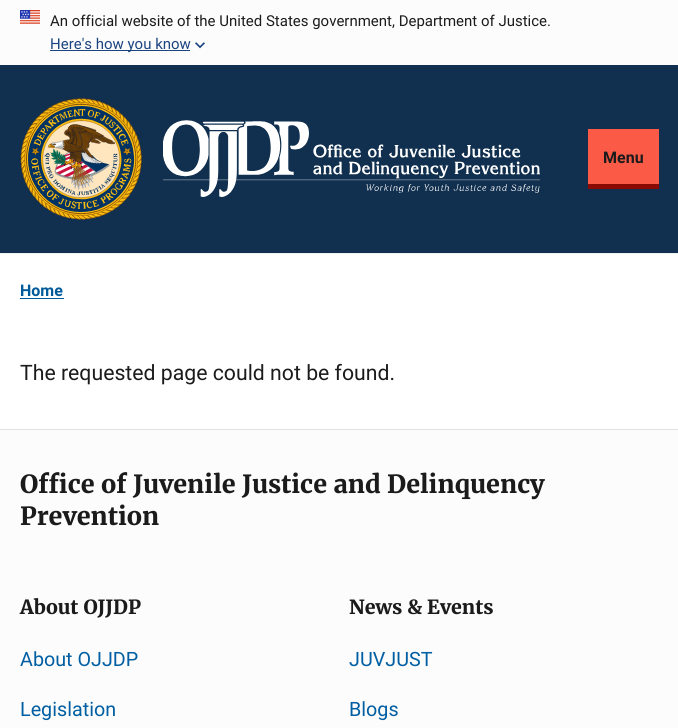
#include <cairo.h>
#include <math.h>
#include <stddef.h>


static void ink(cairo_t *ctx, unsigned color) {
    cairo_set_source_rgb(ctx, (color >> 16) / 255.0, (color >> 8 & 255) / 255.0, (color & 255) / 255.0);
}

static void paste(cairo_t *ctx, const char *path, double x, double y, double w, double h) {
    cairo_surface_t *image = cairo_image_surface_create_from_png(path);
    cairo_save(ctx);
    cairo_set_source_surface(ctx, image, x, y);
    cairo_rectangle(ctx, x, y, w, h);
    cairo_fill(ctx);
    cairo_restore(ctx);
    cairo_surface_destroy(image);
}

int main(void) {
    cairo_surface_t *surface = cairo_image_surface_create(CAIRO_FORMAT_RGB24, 678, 728);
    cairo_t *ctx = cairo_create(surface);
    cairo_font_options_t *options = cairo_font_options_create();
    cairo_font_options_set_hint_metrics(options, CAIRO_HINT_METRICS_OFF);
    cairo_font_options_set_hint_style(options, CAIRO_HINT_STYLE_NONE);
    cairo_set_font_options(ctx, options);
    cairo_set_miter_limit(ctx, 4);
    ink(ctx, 0xFFFFFF);
    cairo_paint(ctx);
    ink(ctx, 0xFCFCFC);
    cairo_rectangle(ctx, 0, 0, 678, 65);
    cairo_fill(ctx);
    paste(ctx, "media/1.png", 20, 10, 20, 14);
    cairo_select_font_face(ctx, "Roboto", CAIRO_FONT_SLANT_NORMAL, CAIRO_FONT_WEIGHT_NORMAL);
    cairo_set_font_size(ctx, 15);
    ink(ctx, 0x1B1B1B);
    cairo_move_to(ctx, 50, 26);
    cairo_show_text(ctx, "An official website of the United States government, Department of Justice.");
    ink(ctx, 0x1A4480);
    cairo_rectangle(ctx, 50, 50, 140, 1);
    cairo_fill(ctx);
    cairo_move_to(ctx, 50, 49);
    cairo_show_text(ctx, "Here's how you know");
    paste(ctx, "media/2.png", 195, 42, 10, 7);
    ink(ctx, 0x112F4E);
    cairo_rectangle(ctx, 0, 65, 678, 188);
    cairo_fill(ctx);
    ink(ctx, 0xEDEFF0);
    cairo_rectangle(ctx, 0, 253, 678, 1);
    cairo_fill(ctx);
    paste(ctx, "media/3.png", 20, 98, 122, 122);
    paste(ctx, "media/4.png", 163, 120, 377, 77);
    ink(ctx, 0xFB5A47);
    cairo_rectangle(ctx, 588, 129, 71, 55);
    cairo_fill(ctx);
    cairo_select_font_face(ctx, "Roboto", CAIRO_FONT_SLANT_NORMAL, CAIRO_FONT_WEIGHT_BOLD);
    cairo_set_font_size(ctx, 16);
    ink(ctx, 0x1B1B1B);
    cairo_move_to(ctx, 603, 163);
    cairo_show_text(ctx, "Menu");
    ink(ctx, 0x8B0A03);
    cairo_rectangle(ctx, 588, 184, 71, 5);
    cairo_fill(ctx);
    ink(ctx, 0x005999);
    cairo_move_to(ctx, 20, 296);
    cairo_show_text(ctx, "Home");
    cairo_rectangle(ctx, 20, 298, 44, 1);
    cairo_fill(ctx);
    cairo_select_font_face(ctx, "Roboto", CAIRO_FONT_SLANT_NORMAL, CAIRO_FONT_WEIGHT_NORMAL);
    cairo_set_font_size(ctx, 21.25);
    ink(ctx, 0x1B1B1B);
    cairo_move_to(ctx, 20, 380);
    cairo_show_text(ctx, "The requested page could not be found.");
    ink(ctx, 0xFCFCFC);
    cairo_rectangle(ctx, 0, 430, 678, 298);
    cairo_fill(ctx);
    ink(ctx, 0xDFE1E2);
    cairo_rectangle(ctx, 0, 429, 678, 1);
    cairo_fill(ctx);
    cairo_select_font_face(ctx, "Merriweather", CAIRO_FONT_SLANT_NORMAL, CAIRO_FONT_WEIGHT_BOLD);
    cairo_set_font_size(ctx, 25);
    ink(ctx, 0x1B1B1B);
    cairo_move_to(ctx, 20, 493);
    cairo_show_text(ctx, "Office of Juvenile Justice and Delinquency");
    cairo_move_to(ctx, 20, 525);
    cairo_show_text(ctx, "Prevention");
    cairo_set_font_size(ctx, 19.5);
    cairo_move_to(ctx, 20, 614);
    cairo_show_text(ctx, "About OJJDP");
    cairo_select_font_face(ctx, "Roboto", CAIRO_FONT_SLANT_NORMAL, CAIRO_FONT_WEIGHT_NORMAL);
    cairo_set_font_size(ctx, 19.75);
    ink(ctx, 0x005EA2);
    cairo_move_to(ctx, 20, 666);
    cairo_show_text(ctx, "About OJJDP");
    cairo_move_to(ctx, 20, 716);
    cairo_show_text(ctx, "Legislation");
    cairo_select_font_face(ctx, "Merriweather", CAIRO_FONT_SLANT_NORMAL, CAIRO_FONT_WEIGHT_BOLD);
    cairo_set_font_size(ctx, 19.5);
    ink(ctx, 0x1B1B1B);
    cairo_move_to(ctx, 349, 614);
    cairo_show_text(ctx, "News & Events");
    cairo_select_font_face(ctx, "Roboto", CAIRO_FONT_SLANT_NORMAL, CAIRO_FONT_WEIGHT_NORMAL);
    cairo_set_font_size(ctx, 19.75);
    ink(ctx, 0x005EA2);
    cairo_move_to(ctx, 349, 666);
    cairo_show_text(ctx, "JUVJUST");
    cairo_move_to(ctx, 349, 716);
    cairo_show_text(ctx, "Blogs");
    cairo_surface_write_to_png(surface, "image.png");
    cairo_font_options_destroy(options);
    cairo_destroy(ctx);
    cairo_surface_destroy(surface);
    return 0;
}
